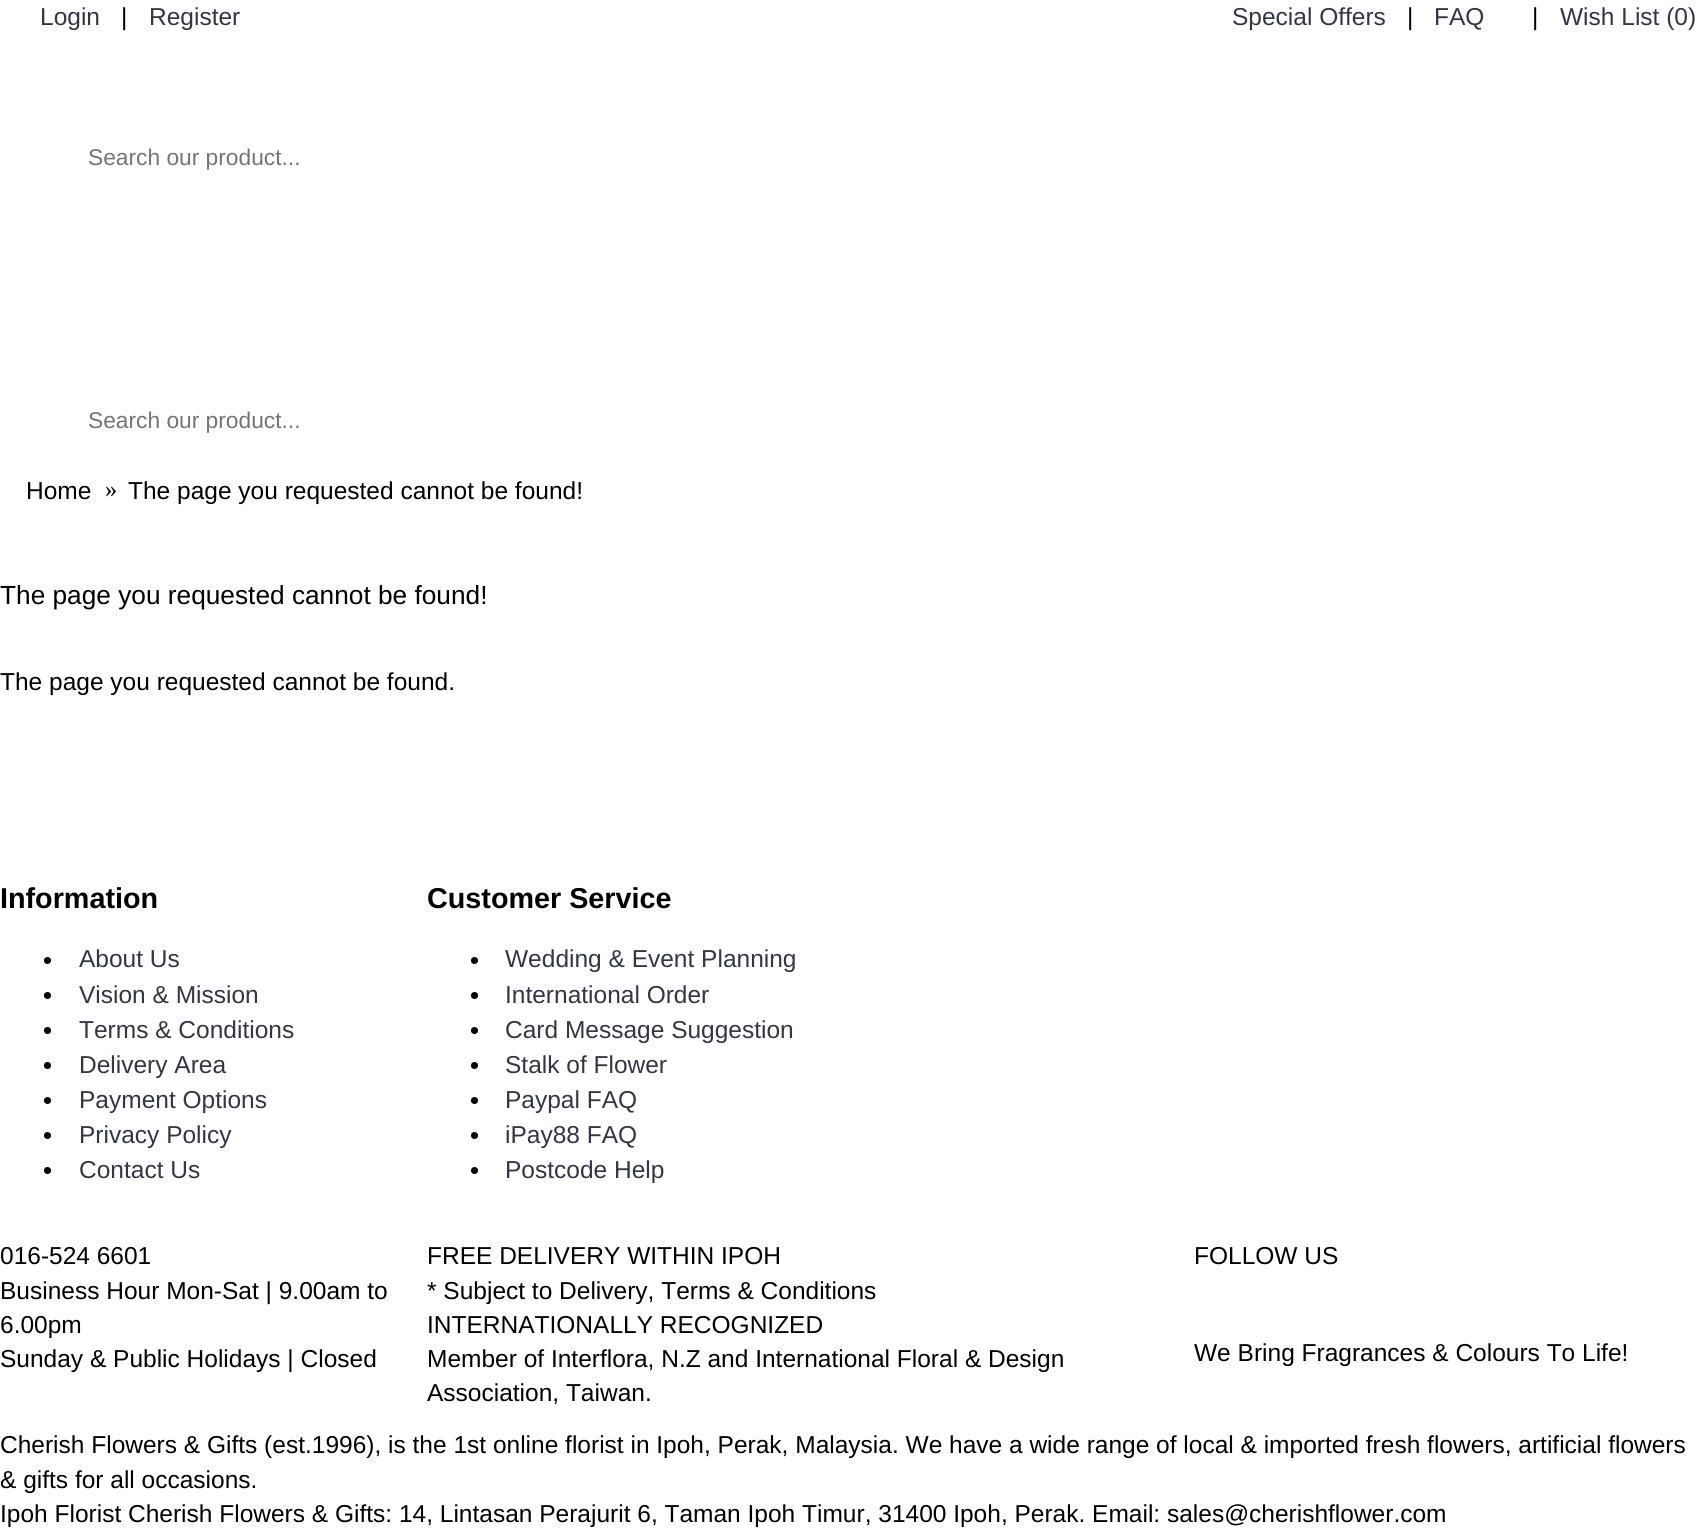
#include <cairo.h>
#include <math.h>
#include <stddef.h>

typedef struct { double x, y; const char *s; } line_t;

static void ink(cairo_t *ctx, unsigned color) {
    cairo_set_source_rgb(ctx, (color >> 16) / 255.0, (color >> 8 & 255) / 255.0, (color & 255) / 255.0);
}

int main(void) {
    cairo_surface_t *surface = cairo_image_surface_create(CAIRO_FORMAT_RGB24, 1706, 1530);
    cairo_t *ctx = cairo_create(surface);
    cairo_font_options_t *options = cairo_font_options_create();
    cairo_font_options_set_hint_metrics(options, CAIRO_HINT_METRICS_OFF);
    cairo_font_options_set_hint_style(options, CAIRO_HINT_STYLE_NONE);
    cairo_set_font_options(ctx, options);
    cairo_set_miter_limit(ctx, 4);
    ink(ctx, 0xFFFFFF);
    cairo_paint(ctx);
    cairo_select_font_face(ctx, "Liberation Sans", CAIRO_FONT_SLANT_NORMAL, CAIRO_FONT_WEIGHT_NORMAL);
    cairo_set_font_size(ctx, 24.5);
    ink(ctx, 0x333745);
    cairo_move_to(ctx, 40, 25);
    cairo_show_text(ctx, "Login");
    ink(ctx, 0x000000);
    cairo_move_to(ctx, 121, 25);
    cairo_show_text(ctx, "|");
    ink(ctx, 0x333745);
    cairo_move_to(ctx, 149, 25);
    cairo_show_text(ctx, "Register");
    cairo_move_to(ctx, 1232, 25);
    cairo_show_text(ctx, "Special Offers");
    ink(ctx, 0x000000);
    cairo_move_to(ctx, 1407, 25);
    cairo_show_text(ctx, "|");
    ink(ctx, 0x333745);
    cairo_move_to(ctx, 1434, 25);
    cairo_show_text(ctx, "FAQ");
    ink(ctx, 0x000000);
    cairo_move_to(ctx, 1532, 25);
    cairo_show_text(ctx, "|");
    ink(ctx, 0x333745);
    cairo_move_to(ctx, 1560, 25);
    cairo_show_text(ctx, "Wish List (0)");
    cairo_set_font_size(ctx, 22.75);
    ink(ctx, 0x757575);
    cairo_move_to(ctx, 88, 165);
    cairo_show_text(ctx, "Search our product...");
    cairo_move_to(ctx, 88, 428);
    cairo_show_text(ctx, "Search our product...");
    cairo_set_font_size(ctx, 24.5);
    ink(ctx, 0x000000);
    cairo_move_to(ctx, 26, 499);
    cairo_show_text(ctx, "Home");
    cairo_select_font_face(ctx, "Liberation Serif", CAIRO_FONT_SLANT_NORMAL, CAIRO_FONT_WEIGHT_NORMAL);
    cairo_move_to(ctx, 105, 497);
    cairo_show_text(ctx, "»");
    cairo_select_font_face(ctx, "Liberation Sans", CAIRO_FONT_SLANT_NORMAL, CAIRO_FONT_WEIGHT_NORMAL);
    cairo_move_to(ctx, 128, 499);
    cairo_show_text(ctx, "The page you requested cannot be found!");
    cairo_set_font_size(ctx, 26.25);
    cairo_move_to(ctx, 0, 604);
    cairo_show_text(ctx, "The page you requested cannot be found!");
    cairo_set_font_size(ctx, 24.5);
    cairo_move_to(ctx, 0, 690);
    cairo_show_text(ctx, "The page you requested cannot be found.");
    cairo_select_font_face(ctx, "Liberation Sans", CAIRO_FONT_SLANT_NORMAL, CAIRO_FONT_WEIGHT_BOLD);
    cairo_set_font_size(ctx, 28.75);
    cairo_move_to(ctx, 0, 908);
    cairo_show_text(ctx, "Information");
    cairo_new_path(ctx);
    cairo_arc(ctx, 47.5, 960.5, 3.5, 0, 2 * M_PI);
    cairo_fill(ctx);
    cairo_select_font_face(ctx, "Liberation Sans", CAIRO_FONT_SLANT_NORMAL, CAIRO_FONT_WEIGHT_NORMAL);
    cairo_set_font_size(ctx, 24.5);
    ink(ctx, 0x333745);
    cairo_move_to(ctx, 79, 967);
    cairo_show_text(ctx, "About Us");
    ink(ctx, 0x000000);
    cairo_new_path(ctx);
    cairo_arc(ctx, 47.5, 995.5, 3.5, 0, 2 * M_PI);
    cairo_fill(ctx);
    ink(ctx, 0x333745);
    cairo_move_to(ctx, 79, 1003);
    cairo_show_text(ctx, "Vision & Mission");
    ink(ctx, 0x000000);
    cairo_new_path(ctx);
    cairo_arc(ctx, 47.5, 1030.5, 3.5, 0, 2 * M_PI);
    cairo_fill(ctx);
    ink(ctx, 0x333745);
    cairo_move_to(ctx, 79, 1038);
    cairo_show_text(ctx, "Terms & Conditions");
    ink(ctx, 0x000000);
    cairo_new_path(ctx);
    cairo_arc(ctx, 47.5, 1065.5, 3.5, 0, 2 * M_PI);
    cairo_fill(ctx);
    ink(ctx, 0x333745);
    cairo_move_to(ctx, 79, 1073);
    cairo_show_text(ctx, "Delivery Area");
    ink(ctx, 0x000000);
    cairo_new_path(ctx);
    cairo_arc(ctx, 47.5, 1100.5, 3.5, 0, 2 * M_PI);
    cairo_fill(ctx);
    ink(ctx, 0x333745);
    cairo_move_to(ctx, 79, 1108);
    cairo_show_text(ctx, "Payment Options");
    ink(ctx, 0x000000);
    cairo_new_path(ctx);
    cairo_arc(ctx, 47.5, 1135.5, 3.5, 0, 2 * M_PI);
    cairo_fill(ctx);
    ink(ctx, 0x333745);
    cairo_move_to(ctx, 79, 1143);
    cairo_show_text(ctx, "Privacy Policy");
    ink(ctx, 0x000000);
    cairo_new_path(ctx);
    cairo_arc(ctx, 47.5, 1170.5, 3.5, 0, 2 * M_PI);
    cairo_fill(ctx);
    ink(ctx, 0x333745);
    cairo_move_to(ctx, 79, 1178);
    cairo_show_text(ctx, "Contact Us");
    cairo_select_font_face(ctx, "Liberation Sans", CAIRO_FONT_SLANT_NORMAL, CAIRO_FONT_WEIGHT_BOLD);
    cairo_set_font_size(ctx, 28.75);
    ink(ctx, 0x000000);
    cairo_move_to(ctx, 427, 908);
    cairo_show_text(ctx, "Customer Service");
    cairo_new_path(ctx);
    cairo_arc(ctx, 474.5, 960.5, 3.5, 0, 2 * M_PI);
    cairo_fill(ctx);
    cairo_select_font_face(ctx, "Liberation Sans", CAIRO_FONT_SLANT_NORMAL, CAIRO_FONT_WEIGHT_NORMAL);
    cairo_set_font_size(ctx, 24.5);
    ink(ctx, 0x333745);
    cairo_move_to(ctx, 505, 967);
    cairo_show_text(ctx, "Wedding & Event Planning");
    ink(ctx, 0x000000);
    cairo_new_path(ctx);
    cairo_arc(ctx, 474.5, 995.5, 3.5, 0, 2 * M_PI);
    cairo_fill(ctx);
    ink(ctx, 0x333745);
    cairo_move_to(ctx, 505, 1003);
    cairo_show_text(ctx, "International Order");
    ink(ctx, 0x000000);
    cairo_new_path(ctx);
    cairo_arc(ctx, 474.5, 1030.5, 3.5, 0, 2 * M_PI);
    cairo_fill(ctx);
    ink(ctx, 0x333745);
    cairo_move_to(ctx, 505, 1038);
    cairo_show_text(ctx, "Card Message Suggestion");
    ink(ctx, 0x000000);
    cairo_new_path(ctx);
    cairo_arc(ctx, 474.5, 1065.5, 3.5, 0, 2 * M_PI);
    cairo_fill(ctx);
    ink(ctx, 0x333745);
    cairo_move_to(ctx, 505, 1073);
    cairo_show_text(ctx, "Stalk of Flower");
    ink(ctx, 0x000000);
    cairo_new_path(ctx);
    cairo_arc(ctx, 474.5, 1100.5, 3.5, 0, 2 * M_PI);
    cairo_fill(ctx);
    ink(ctx, 0x333745);
    cairo_move_to(ctx, 505, 1108);
    cairo_show_text(ctx, "Paypal FAQ");
    ink(ctx, 0x000000);
    cairo_new_path(ctx);
    cairo_arc(ctx, 474.5, 1135.5, 3.5, 0, 2 * M_PI);
    cairo_fill(ctx);
    ink(ctx, 0x333745);
    cairo_move_to(ctx, 505, 1143);
    cairo_show_text(ctx, "iPay88 FAQ");
    ink(ctx, 0x000000);
    cairo_new_path(ctx);
    cairo_arc(ctx, 474.5, 1170.5, 3.5, 0, 2 * M_PI);
    cairo_fill(ctx);
    ink(ctx, 0x333745);
    cairo_move_to(ctx, 505, 1178);
    cairo_show_text(ctx, "Postcode Help");
    ink(ctx, 0x000000);
    {
        static const line_t items[] = {
            {0, 1264, "016-524 6601"},
            {0, 1299, "Business Hour Mon-Sat | 9.00am to"},
            {0, 1333, "6.00pm"},
            {0, 1367, "Sunday & Public Holidays | Closed"},
            {427, 1264, "FREE DELIVERY WITHIN IPOH"},
            {427, 1299, "* Subject to Delivery, Terms & Conditions"},
            {427, 1333, "INTERNATIONALLY RECOGNIZED"},
            {427, 1367, "Member of Interflora, N.Z and International Floral & Design"},
            {427, 1401, "Association, Taiwan."},
            {1194, 1264, "FOLLOW US"},
            {1194, 1361, "We Bring Fragrances & Colours To Life!"},
            {0, 1453, "Cherish Flowers & Gifts (est.1996), is the 1st online florist in Ipoh, Perak, Malaysia. We have a wide range of local & imported fresh flowers, artificial flowers"},
            {0, 1488, "& gifts for all occasions."},
            {0, 1522, "Ipoh Florist Cherish Flowers & Gifts: 14, Lintasan Perajurit 6, Taman Ipoh Timur, 31400 Ipoh, Perak. Email: sales@cherishflower.com"},
        };
        for (size_t i = 0; i < sizeof items / sizeof *items; i++) {
            cairo_move_to(ctx, items[i].x, items[i].y);
            cairo_show_text(ctx, items[i].s);
        }
    }
    cairo_surface_write_to_png(surface, "image.png");
    cairo_font_options_destroy(options);
    cairo_destroy(ctx);
    cairo_surface_destroy(surface);
    return 0;
}
